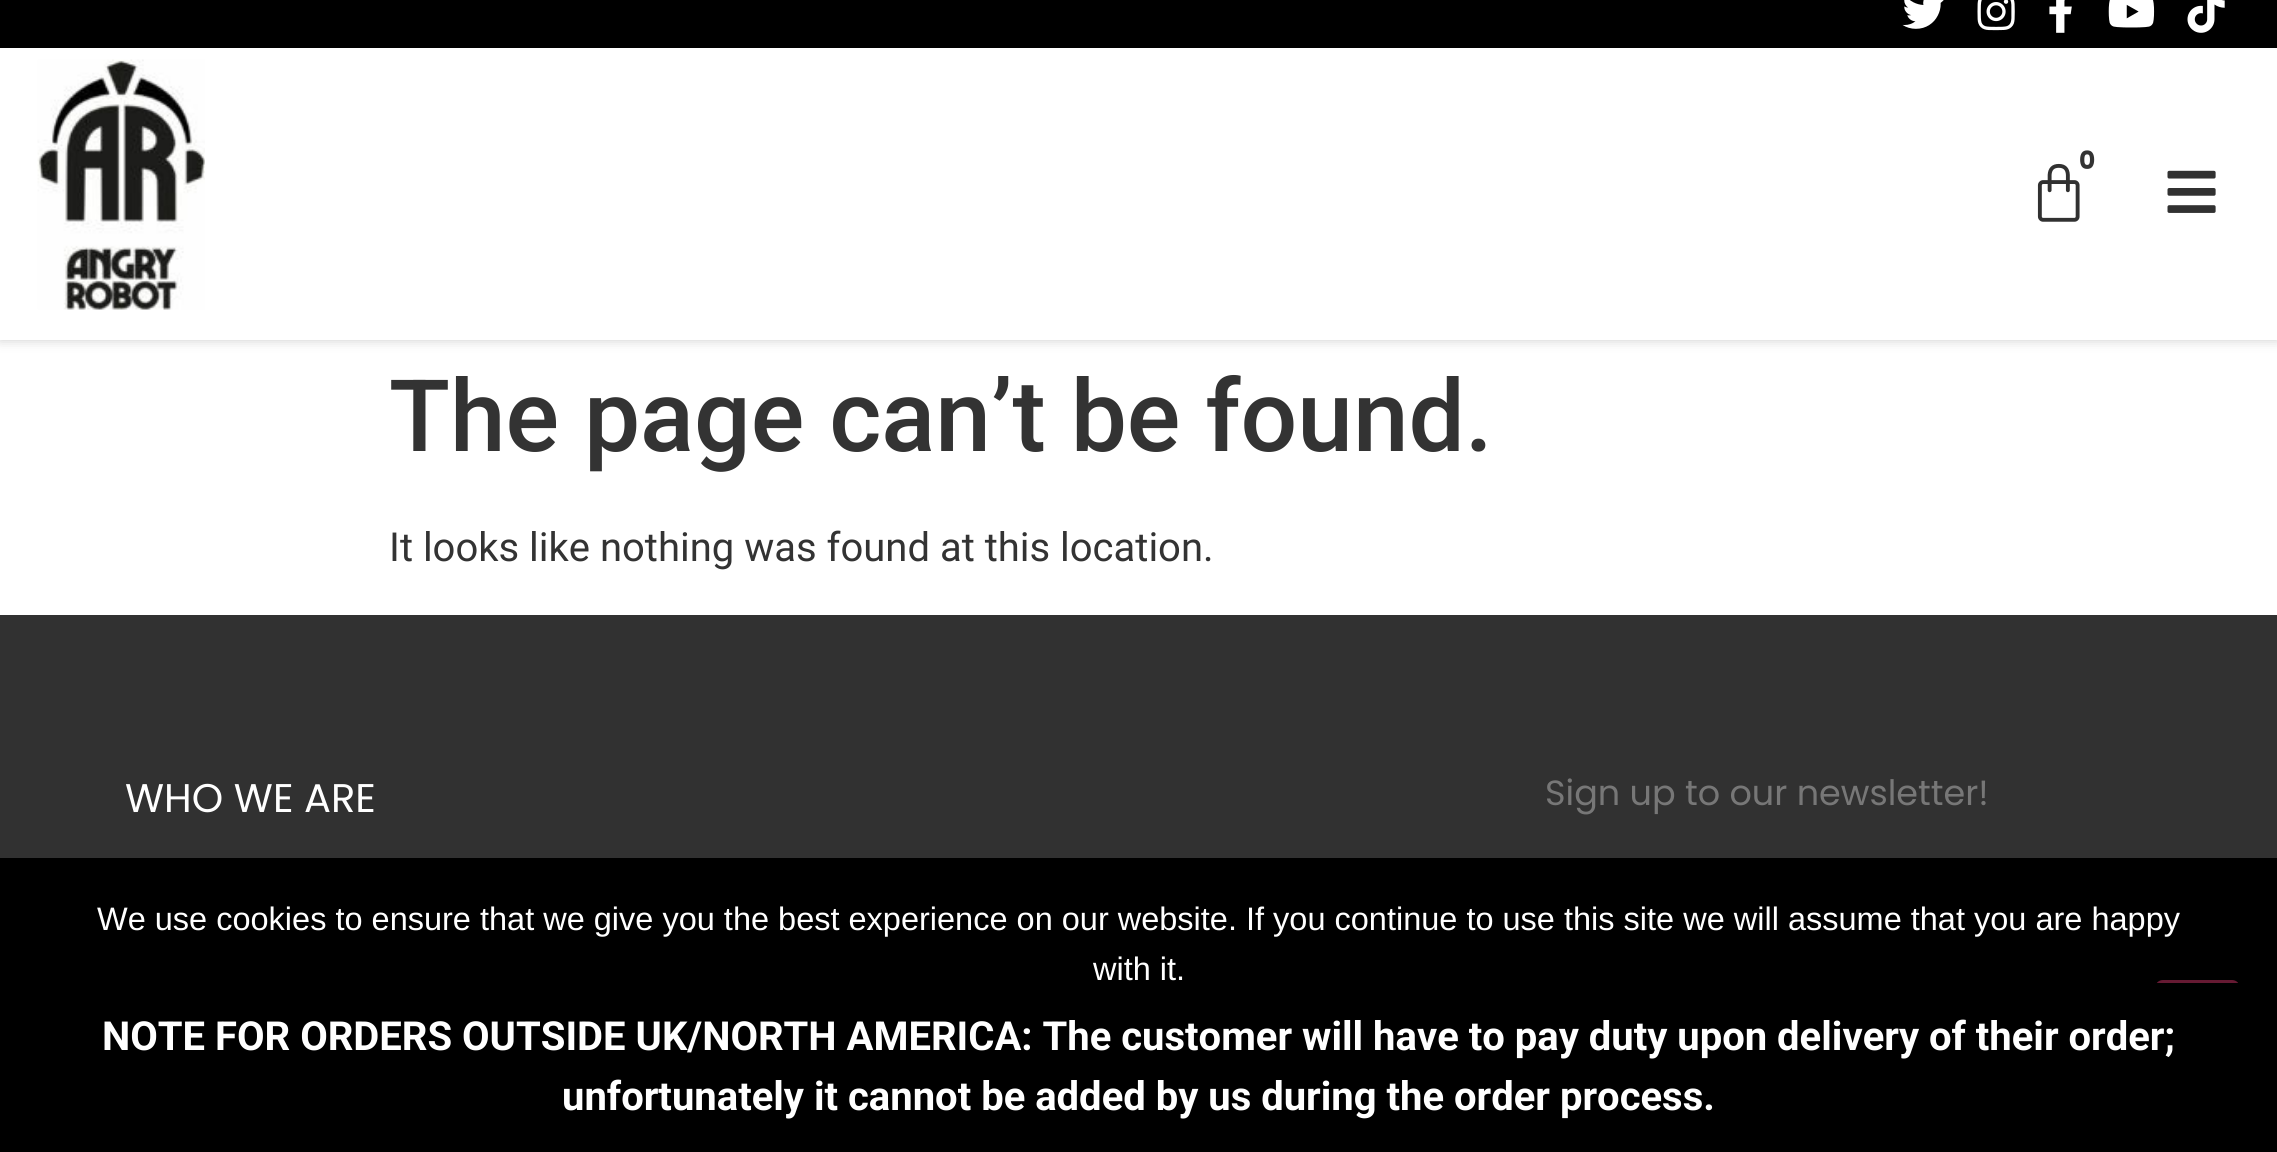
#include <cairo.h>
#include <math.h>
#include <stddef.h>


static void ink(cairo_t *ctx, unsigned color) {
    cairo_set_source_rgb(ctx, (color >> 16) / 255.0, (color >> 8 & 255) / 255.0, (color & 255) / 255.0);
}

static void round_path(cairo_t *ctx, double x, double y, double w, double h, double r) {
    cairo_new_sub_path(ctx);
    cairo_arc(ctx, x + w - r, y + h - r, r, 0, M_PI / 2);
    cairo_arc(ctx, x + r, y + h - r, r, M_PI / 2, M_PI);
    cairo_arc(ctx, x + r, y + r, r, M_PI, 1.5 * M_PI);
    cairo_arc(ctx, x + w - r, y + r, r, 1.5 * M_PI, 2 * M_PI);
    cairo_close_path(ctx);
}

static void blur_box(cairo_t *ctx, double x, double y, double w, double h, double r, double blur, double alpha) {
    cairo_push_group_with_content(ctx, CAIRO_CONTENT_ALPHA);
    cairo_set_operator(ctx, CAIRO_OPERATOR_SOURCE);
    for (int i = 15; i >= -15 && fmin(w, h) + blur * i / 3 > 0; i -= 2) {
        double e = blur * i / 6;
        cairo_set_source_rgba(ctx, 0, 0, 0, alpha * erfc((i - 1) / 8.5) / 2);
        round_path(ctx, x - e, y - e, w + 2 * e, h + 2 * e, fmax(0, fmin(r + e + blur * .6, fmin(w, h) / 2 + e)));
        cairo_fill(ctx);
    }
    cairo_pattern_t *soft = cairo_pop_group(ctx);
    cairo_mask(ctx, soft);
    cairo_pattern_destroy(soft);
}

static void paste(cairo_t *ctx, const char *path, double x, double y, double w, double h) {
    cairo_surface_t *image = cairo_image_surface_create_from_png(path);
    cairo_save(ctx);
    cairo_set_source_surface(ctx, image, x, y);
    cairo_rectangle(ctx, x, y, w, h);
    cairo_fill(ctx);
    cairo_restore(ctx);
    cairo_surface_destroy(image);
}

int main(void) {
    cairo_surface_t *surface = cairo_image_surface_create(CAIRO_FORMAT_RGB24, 2277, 1152);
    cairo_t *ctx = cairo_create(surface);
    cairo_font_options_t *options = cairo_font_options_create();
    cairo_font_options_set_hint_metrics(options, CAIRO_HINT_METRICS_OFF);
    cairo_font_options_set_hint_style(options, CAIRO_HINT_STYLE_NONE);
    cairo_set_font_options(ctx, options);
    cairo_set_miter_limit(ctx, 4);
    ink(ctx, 0xFFFFFF);
    cairo_paint(ctx);
    ink(ctx, 0x000000);
    cairo_rectangle(ctx, 0, 0, 2277, 48);
    cairo_fill(ctx);
    paste(ctx, "media/1.png", 1902, 0, 42, 29);
    paste(ctx, "media/2.png", 1977, 0, 38, 31);
    paste(ctx, "media/3.png", 2049, 0, 23, 33);
    paste(ctx, "media/4.png", 2108, 0, 47, 28);
    paste(ctx, "media/5.png", 2187, 0, 38, 33);
    cairo_save(ctx);
    cairo_set_fill_rule(ctx, CAIRO_FILL_RULE_EVEN_ODD);
    cairo_new_path(ctx);
    cairo_move_to(ctx, 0, 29);
    cairo_line_to(ctx, 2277, 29);
    cairo_line_to(ctx, 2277, 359);
    cairo_line_to(ctx, 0, 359);
    cairo_close_path(ctx);
    cairo_move_to(ctx, 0, 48);
    cairo_line_to(ctx, 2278, 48);
    cairo_line_to(ctx, 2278, 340);
    cairo_line_to(ctx, 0, 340);
    cairo_close_path(ctx);
    cairo_clip(ctx);
    ink(ctx, 0x000000);
    blur_box(ctx, 0, 48, 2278, 292, 0, 6, 0.2);
    cairo_restore(ctx);
    paste(ctx, "media/6.png", 37, 59, 168, 251);
    cairo_select_font_face(ctx, "Poppins", CAIRO_FONT_SLANT_NORMAL, CAIRO_FONT_WEIGHT_BOLD);
    cairo_set_font_size(ctx, 25);
    ink(ctx, 0x333333);
    cairo_move_to(ctx, 2079, 169);
    cairo_show_text(ctx, "0");
    paste(ctx, "media/7.png", 2037, 163, 43, 59);
    paste(ctx, "media/8.png", 2167, 170, 49, 43);
    cairo_select_font_face(ctx, "Roboto Medium", CAIRO_FONT_SLANT_NORMAL, CAIRO_FONT_WEIGHT_NORMAL);
    cairo_set_font_size(ctx, 100);
    cairo_move_to(ctx, 389, 451);
    cairo_show_text(ctx, "The page can’t be found.");
    cairo_select_font_face(ctx, "Roboto", CAIRO_FONT_SLANT_NORMAL, CAIRO_FONT_WEIGHT_NORMAL);
    cairo_set_font_size(ctx, 40);
    cairo_move_to(ctx, 389, 561);
    cairo_show_text(ctx, "It looks like nothing was found at this location.");
    ink(ctx, 0x313131);
    cairo_rectangle(ctx, 0, 615, 2277, 243);
    cairo_fill(ctx);
    cairo_select_font_face(ctx, "Poppins", CAIRO_FONT_SLANT_NORMAL, CAIRO_FONT_WEIGHT_NORMAL);
    ink(ctx, 0xFFFFFF);
    cairo_move_to(ctx, 125, 812);
    cairo_show_text(ctx, "WHO WE ARE");
    cairo_set_font_size(ctx, 35);
    ink(ctx, 0x777777);
    cairo_move_to(ctx, 1545, 805);
    cairo_show_text(ctx, "Sign up to our newsletter!");
    ink(ctx, 0x000000);
    cairo_rectangle(ctx, 0, 858, 2277, 125);
    cairo_fill(ctx);
    cairo_select_font_face(ctx, "Liberation Sans", CAIRO_FONT_SLANT_NORMAL, CAIRO_FONT_WEIGHT_NORMAL);
    cairo_set_font_size(ctx, 32.5);
    ink(ctx, 0xFFFFFF);
    cairo_move_to(ctx, 97, 930);
    cairo_show_text(ctx, "We use cookies to ensure that we give you the best experience on our website. If you continue to use this site we will assume that you are happy");
    cairo_move_to(ctx, 1093, 980);
    cairo_show_text(ctx, "with it.");
    round_path(ctx, 2156.5, 981.5, 82, 42, 6.5);
    ink(ctx, 0x661A33);
    cairo_set_line_width(ctx, 3);
    cairo_stroke(ctx);
    ink(ctx, 0x000000);
    cairo_rectangle(ctx, 0, 983, 2277, 169);
    cairo_fill(ctx);
    cairo_select_font_face(ctx, "Roboto", CAIRO_FONT_SLANT_NORMAL, CAIRO_FONT_WEIGHT_BOLD);
    cairo_set_font_size(ctx, 40);
    ink(ctx, 0xFFFFFF);
    cairo_move_to(ctx, 102, 1050);
    cairo_show_text(ctx, "NOTE FOR ORDERS OUTSIDE UK/NORTH AMERICA: The customer will have to pay duty upon delivery of their order;");
    cairo_move_to(ctx, 562, 1110);
    cairo_show_text(ctx, "unfortunately it cannot be added by us during the order process.");
    cairo_surface_write_to_png(surface, "image.png");
    cairo_font_options_destroy(options);
    cairo_destroy(ctx);
    cairo_surface_destroy(surface);
    return 0;
}
